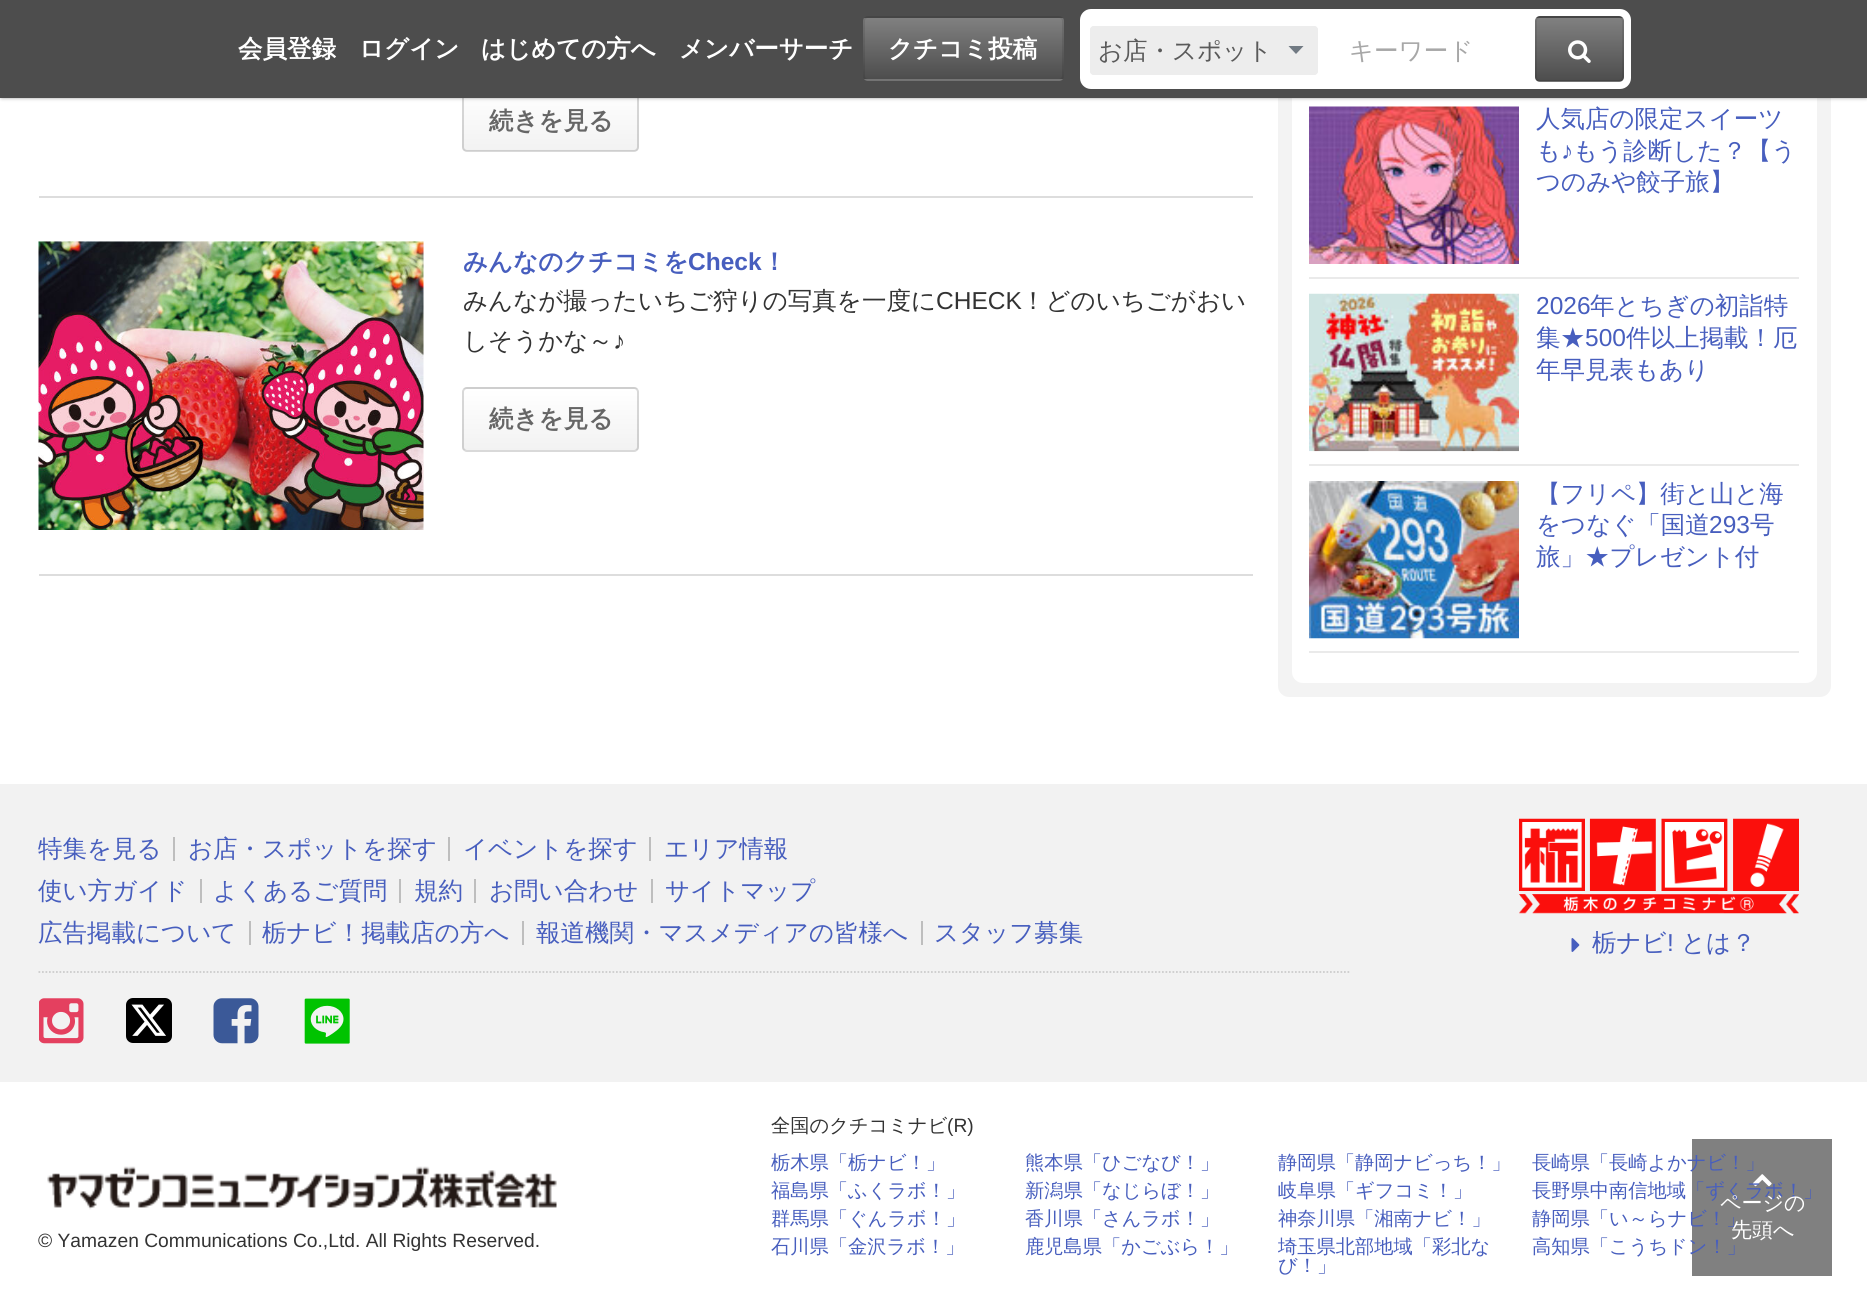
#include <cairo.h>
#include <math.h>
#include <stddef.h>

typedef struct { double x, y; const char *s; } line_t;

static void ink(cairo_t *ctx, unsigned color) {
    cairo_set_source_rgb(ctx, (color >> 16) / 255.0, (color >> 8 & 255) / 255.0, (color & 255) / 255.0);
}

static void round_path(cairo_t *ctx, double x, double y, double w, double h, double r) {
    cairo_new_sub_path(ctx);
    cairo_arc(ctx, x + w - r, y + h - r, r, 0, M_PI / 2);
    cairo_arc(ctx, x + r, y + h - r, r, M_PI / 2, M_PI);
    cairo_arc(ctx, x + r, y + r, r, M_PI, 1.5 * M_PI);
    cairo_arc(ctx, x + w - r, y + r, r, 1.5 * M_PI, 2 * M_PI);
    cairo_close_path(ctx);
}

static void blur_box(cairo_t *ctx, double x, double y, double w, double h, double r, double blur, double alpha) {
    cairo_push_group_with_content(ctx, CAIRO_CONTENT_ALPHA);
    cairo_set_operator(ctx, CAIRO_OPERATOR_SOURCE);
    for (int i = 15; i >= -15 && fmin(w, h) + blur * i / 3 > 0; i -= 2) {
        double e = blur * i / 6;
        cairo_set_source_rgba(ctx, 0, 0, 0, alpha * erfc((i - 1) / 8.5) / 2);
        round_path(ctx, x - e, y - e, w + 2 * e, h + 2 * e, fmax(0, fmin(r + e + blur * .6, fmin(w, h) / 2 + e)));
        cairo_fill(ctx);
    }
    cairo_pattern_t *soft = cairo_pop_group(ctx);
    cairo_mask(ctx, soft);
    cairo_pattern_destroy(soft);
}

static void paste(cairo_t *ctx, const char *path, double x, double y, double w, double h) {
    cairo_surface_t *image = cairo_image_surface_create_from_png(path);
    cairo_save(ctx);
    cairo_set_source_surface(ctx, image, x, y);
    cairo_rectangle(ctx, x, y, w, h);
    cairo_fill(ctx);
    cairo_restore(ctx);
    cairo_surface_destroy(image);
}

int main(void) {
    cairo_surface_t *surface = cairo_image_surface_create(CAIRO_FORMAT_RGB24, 1867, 1310);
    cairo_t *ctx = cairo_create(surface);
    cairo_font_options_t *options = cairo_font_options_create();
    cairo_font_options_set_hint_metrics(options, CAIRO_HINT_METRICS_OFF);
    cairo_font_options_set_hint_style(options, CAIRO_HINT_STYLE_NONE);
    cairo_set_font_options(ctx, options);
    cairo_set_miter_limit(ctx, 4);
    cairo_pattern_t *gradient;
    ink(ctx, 0xFFFFFF);
    cairo_paint(ctx);
    cairo_save(ctx);
    round_path(ctx, 462, 88, 177, 64, 5);
    cairo_clip(ctx);
    gradient = cairo_pattern_create_linear(550, 89, 550, 151);
    cairo_pattern_add_color_stop_rgba(gradient, 0, 1, 1, 1, 1);
    cairo_pattern_add_color_stop_rgba(gradient, 1, 0.949, 0.949, 0.949, 1);
    cairo_set_source(ctx, gradient);
    cairo_pattern_destroy(gradient);
    cairo_rectangle(ctx, 462, 98, 177, 53);
    cairo_fill(ctx);
    cairo_restore(ctx);
    round_path(ctx, 463, 89, 175, 62, 4);
    cairo_set_source_rgba(ctx, 0, 0, 0, 0.15);
    cairo_stroke(ctx);
    ink(ctx, 0xF3F3F3);
    round_path(ctx, 1278, -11, 553, 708, 11);
    cairo_fill(ctx);
    ink(ctx, 0xFFFFFF);
    round_path(ctx, 1292, -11, 525, 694, 11);
    cairo_fill(ctx);
    ink(ctx, 0x000000);
    blur_box(ctx, 2, 2, 1864, 94, 0, 2.5, 1);
    ink(ctx, 0x4D4D4D);
    cairo_rectangle(ctx, 0, 0, 1867, 98);
    cairo_fill(ctx);
    cairo_select_font_face(ctx, "WenQuanYi Zen Hei", CAIRO_FONT_SLANT_NORMAL, CAIRO_FONT_WEIGHT_BOLD);
    cairo_set_font_size(ctx, 24.5);
    ink(ctx, 0xFFFFFF);
    {
        static const line_t items[] = {
            {238, 57, "会員登録"},
            {359, 57, "ログイン"},
            {481, 57, "はじめての方へ"},
            {679, 57, "メンバーサーチ"},
        };
        for (size_t i = 0; i < sizeof items / sizeof *items; i++) {
            cairo_move_to(ctx, items[i].x, items[i].y);
            cairo_show_text(ctx, items[i].s);
        }
    }
    cairo_save(ctx);
    round_path(ctx, 863, 16, 201, 65, 5);
    cairo_clip(ctx);
    gradient = cairo_pattern_create_linear(963, 17, 963, 79);
    cairo_pattern_add_color_stop_rgba(gradient, 0, 0.506, 0.506, 0.506, 1);
    cairo_pattern_add_color_stop_rgba(gradient, 1, 0.302, 0.302, 0.302, 1);
    cairo_set_source(ctx, gradient);
    cairo_pattern_destroy(gradient);
    cairo_rectangle(ctx, 863, 18, 201, 61);
    cairo_fill(ctx);
    gradient = cairo_pattern_create_linear(963, 79, 963, 140);
    cairo_pattern_add_color_stop_rgba(gradient, 0, 0.506, 0.506, 0.506, 1);
    cairo_pattern_add_color_stop_rgba(gradient, 1, 0.302, 0.302, 0.302, 1);
    cairo_set_source(ctx, gradient);
    cairo_pattern_destroy(gradient);
    cairo_rectangle(ctx, 863, 79, 201, 2);
    cairo_fill(ctx);
    cairo_restore(ctx);
    round_path(ctx, 864, 17, 199, 63, 4);
    cairo_set_source_rgba(ctx, 0, 0, 0, 0.1);
    cairo_stroke(ctx);
    ink(ctx, 0xFFFFFF);
    cairo_move_to(ctx, 888, 57);
    cairo_show_text(ctx, "クチコミ投稿");
    round_path(ctx, 1080, 9, 551, 80, 11);
    cairo_fill(ctx);
    ink(ctx, 0xEDEDED);
    round_path(ctx, 1090, 26, 228, 49, 4);
    cairo_fill(ctx);
    cairo_save(ctx);
    cairo_rectangle(ctx, 1288, 46, 16, 8);
    cairo_clip(ctx);
    ink(ctx, 0x717A83);
    cairo_new_path(ctx);
    cairo_move_to(ctx, 1304, 45.5);
    cairo_line_to(ctx, 1296, 54);
    cairo_line_to(ctx, 1288, 45.5);
    cairo_close_path(ctx);
    cairo_fill(ctx);
    cairo_restore(ctx);
    round_path(ctx, 1091, 27, 226, 47, 3);
    cairo_stroke(ctx);
    cairo_select_font_face(ctx, "WenQuanYi Zen Hei Medium", CAIRO_FONT_SLANT_NORMAL, CAIRO_FONT_WEIGHT_NORMAL);
    ink(ctx, 0x5A5A5A);
    cairo_move_to(ctx, 1098, 59);
    cairo_show_text(ctx, "お店・スポット");
    ink(ctx, 0xA7A7A7);
    cairo_move_to(ctx, 1349, 59);
    cairo_show_text(ctx, "キーワード");
    cairo_save(ctx);
    round_path(ctx, 1535, 16, 89, 66, 5);
    cairo_clip(ctx);
    gradient = cairo_pattern_create_linear(1579, -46, 1579, 18);
    cairo_pattern_add_color_stop_rgba(gradient, 0, 0.506, 0.506, 0.506, 1);
    cairo_pattern_add_color_stop_rgba(gradient, 1, 0.302, 0.302, 0.302, 1);
    cairo_set_source(ctx, gradient);
    cairo_pattern_destroy(gradient);
    cairo_rectangle(ctx, 1535, 16, 89, 2);
    cairo_fill(ctx);
    gradient = cairo_pattern_create_linear(1579, 17, 1579, 81);
    cairo_pattern_add_color_stop_rgba(gradient, 0, 0.506, 0.506, 0.506, 1);
    cairo_pattern_add_color_stop_rgba(gradient, 1, 0.302, 0.302, 0.302, 1);
    cairo_set_source(ctx, gradient);
    cairo_pattern_destroy(gradient);
    cairo_rectangle(ctx, 1535, 18, 89, 63);
    cairo_fill(ctx);
    gradient = cairo_pattern_create_linear(1579, 81, 1579, 144);
    cairo_pattern_add_color_stop_rgba(gradient, 0, 0.506, 0.506, 0.506, 1);
    cairo_pattern_add_color_stop_rgba(gradient, 1, 0.302, 0.302, 0.302, 1);
    cairo_set_source(ctx, gradient);
    cairo_pattern_destroy(gradient);
    cairo_rectangle(ctx, 1535, 81, 89, 1);
    cairo_fill(ctx);
    cairo_restore(ctx);
    round_path(ctx, 1536, 17, 87, 64, 4);
    cairo_set_source_rgba(ctx, 0, 0, 0, 0.1);
    cairo_stroke(ctx);
    paste(ctx, "media/1.png", 1568, 40, 23, 23);
    ink(ctx, 0xDDDDDD);
    cairo_rectangle(ctx, 39, 196, 1214, 2);
    cairo_fill(ctx);
    cairo_select_font_face(ctx, "WenQuanYi Zen Hei", CAIRO_FONT_SLANT_NORMAL, CAIRO_FONT_WEIGHT_BOLD);
    ink(ctx, 0x666666);
    cairo_move_to(ctx, 489, 129);
    cairo_show_text(ctx, "続きを見る");
    ink(ctx, 0xDDDDDD);
    cairo_rectangle(ctx, 39, 574, 1214, 2);
    cairo_fill(ctx);
    paste(ctx, "media/2.png", 38, 241, 386, 289);
    ink(ctx, 0x475EBE);
    cairo_move_to(ctx, 463, 270);
    cairo_show_text(ctx, "みんなのクチコミを");
    cairo_select_font_face(ctx, "Liberation Sans", CAIRO_FONT_SLANT_NORMAL, CAIRO_FONT_WEIGHT_BOLD);
    cairo_move_to(ctx, 688, 270);
    cairo_show_text(ctx, "Check");
    cairo_select_font_face(ctx, "WenQuanYi Zen Hei", CAIRO_FONT_SLANT_NORMAL, CAIRO_FONT_WEIGHT_BOLD);
    cairo_move_to(ctx, 762, 270);
    cairo_show_text(ctx, "！");
    cairo_select_font_face(ctx, "WenQuanYi Zen Hei Medium", CAIRO_FONT_SLANT_NORMAL, CAIRO_FONT_WEIGHT_NORMAL);
    ink(ctx, 0x333333);
    cairo_move_to(ctx, 463, 309);
    cairo_show_text(ctx, "みんなが撮ったいちご狩りの写真を一度に");
    cairo_select_font_face(ctx, "Liberation Sans", CAIRO_FONT_SLANT_NORMAL, CAIRO_FONT_WEIGHT_NORMAL);
    cairo_move_to(ctx, 936, 309);
    cairo_show_text(ctx, "CHECK");
    cairo_select_font_face(ctx, "WenQuanYi Zen Hei Medium", CAIRO_FONT_SLANT_NORMAL, CAIRO_FONT_WEIGHT_NORMAL);
    cairo_move_to(ctx, 1021, 309);
    cairo_show_text(ctx, "！どのいちごがおい");
    cairo_move_to(ctx, 463, 349);
    cairo_show_text(ctx, "しそうかな～");
    cairo_select_font_face(ctx, "Liberation Sans", CAIRO_FONT_SLANT_NORMAL, CAIRO_FONT_WEIGHT_NORMAL);
    cairo_move_to(ctx, 613, 349);
    cairo_show_text(ctx, "♪");
    cairo_save(ctx);
    round_path(ctx, 462, 387, 177, 65, 5);
    cairo_clip(ctx);
    gradient = cairo_pattern_create_linear(550, 327, 550, 389);
    cairo_pattern_add_color_stop_rgba(gradient, 0, 1, 1, 1, 1);
    cairo_pattern_add_color_stop_rgba(gradient, 1, 0.949, 0.949, 0.949, 1);
    cairo_set_source(ctx, gradient);
    cairo_pattern_destroy(gradient);
    cairo_rectangle(ctx, 462, 387, 177, 2);
    cairo_fill(ctx);
    gradient = cairo_pattern_create_linear(550, 389, 550, 450);
    cairo_pattern_add_color_stop_rgba(gradient, 0, 1, 1, 1, 1);
    cairo_pattern_add_color_stop_rgba(gradient, 1, 0.949, 0.949, 0.949, 1);
    cairo_set_source(ctx, gradient);
    cairo_pattern_destroy(gradient);
    cairo_rectangle(ctx, 462, 389, 177, 61);
    cairo_fill(ctx);
    cairo_restore(ctx);
    round_path(ctx, 463, 388, 175, 63, 4);
    cairo_set_source_rgba(ctx, 0, 0, 0, 0.15);
    cairo_stroke(ctx);
    cairo_select_font_face(ctx, "WenQuanYi Zen Hei", CAIRO_FONT_SLANT_NORMAL, CAIRO_FONT_WEIGHT_BOLD);
    ink(ctx, 0x666666);
    cairo_move_to(ctx, 489, 427);
    cairo_show_text(ctx, "続きを見る");
    ink(ctx, 0xEAEAEA);
    cairo_rectangle(ctx, 1309, 277, 490, 2);
    cairo_fill(ctx);
    paste(ctx, "media/3.png", 1309, 106, 210, 158);
    cairo_select_font_face(ctx, "WenQuanYi Zen Hei Medium", CAIRO_FONT_SLANT_NORMAL, CAIRO_FONT_WEIGHT_NORMAL);
    ink(ctx, 0x475EBE);
    cairo_move_to(ctx, 1536, 127);
    cairo_show_text(ctx, "人気店の限定スイーツ");
    cairo_move_to(ctx, 1536, 159);
    cairo_show_text(ctx, "も");
    cairo_select_font_face(ctx, "Liberation Sans", CAIRO_FONT_SLANT_NORMAL, CAIRO_FONT_WEIGHT_NORMAL);
    cairo_move_to(ctx, 1561, 159);
    cairo_show_text(ctx, "♪");
    cairo_select_font_face(ctx, "WenQuanYi Zen Hei Medium", CAIRO_FONT_SLANT_NORMAL, CAIRO_FONT_WEIGHT_NORMAL);
    cairo_move_to(ctx, 1573, 159);
    cairo_show_text(ctx, "もう診断した？【う");
    cairo_move_to(ctx, 1536, 190);
    cairo_show_text(ctx, "つのみや餃子旅】");
    ink(ctx, 0xEAEAEA);
    cairo_rectangle(ctx, 1309, 464, 490, 2);
    cairo_fill(ctx);
    paste(ctx, "media/4.png", 1309, 293, 210, 159);
    cairo_select_font_face(ctx, "Liberation Sans", CAIRO_FONT_SLANT_NORMAL, CAIRO_FONT_WEIGHT_NORMAL);
    ink(ctx, 0x475EBE);
    cairo_move_to(ctx, 1536, 314);
    cairo_show_text(ctx, "2026");
    cairo_select_font_face(ctx, "WenQuanYi Zen Hei Medium", CAIRO_FONT_SLANT_NORMAL, CAIRO_FONT_WEIGHT_NORMAL);
    cairo_move_to(ctx, 1590, 314);
    cairo_show_text(ctx, "年とちぎの初詣特");
    cairo_move_to(ctx, 1536, 346);
    cairo_show_text(ctx, "集★");
    cairo_select_font_face(ctx, "Liberation Sans", CAIRO_FONT_SLANT_NORMAL, CAIRO_FONT_WEIGHT_NORMAL);
    cairo_move_to(ctx, 1585, 346);
    cairo_show_text(ctx, "500");
    cairo_select_font_face(ctx, "WenQuanYi Zen Hei Medium", CAIRO_FONT_SLANT_NORMAL, CAIRO_FONT_WEIGHT_NORMAL);
    cairo_move_to(ctx, 1626, 346);
    cairo_show_text(ctx, "件以上掲載！厄");
    cairo_move_to(ctx, 1536, 378);
    cairo_show_text(ctx, "年早見表もあり");
    ink(ctx, 0xEAEAEA);
    cairo_rectangle(ctx, 1309, 651, 490, 2);
    cairo_fill(ctx);
    paste(ctx, "media/5.png", 1309, 481, 210, 158);
    ink(ctx, 0x475EBE);
    cairo_move_to(ctx, 1536, 502);
    cairo_show_text(ctx, "【フリペ】街と山と海");
    cairo_move_to(ctx, 1536, 533);
    cairo_show_text(ctx, "をつなぐ「国道");
    cairo_select_font_face(ctx, "Liberation Sans", CAIRO_FONT_SLANT_NORMAL, CAIRO_FONT_WEIGHT_NORMAL);
    cairo_move_to(ctx, 1709, 533);
    cairo_show_text(ctx, "293");
    cairo_select_font_face(ctx, "WenQuanYi Zen Hei Medium", CAIRO_FONT_SLANT_NORMAL, CAIRO_FONT_WEIGHT_NORMAL);
    cairo_move_to(ctx, 1750, 533);
    cairo_show_text(ctx, "号");
    cairo_move_to(ctx, 1536, 565);
    cairo_show_text(ctx, "旅」★プレゼント付");
    ink(ctx, 0xF2F2F2);
    cairo_rectangle(ctx, 0, 784, 1867, 298);
    cairo_fill(ctx);
    ink(ctx, 0x475EBE);
    cairo_move_to(ctx, 38, 857);
    cairo_show_text(ctx, "特集を見る");
    ink(ctx, 0xBEBEBE);
    cairo_rectangle(ctx, 173, 837, 2, 24);
    cairo_fill(ctx);
    ink(ctx, 0x475EBE);
    cairo_move_to(ctx, 188, 857);
    cairo_show_text(ctx, "お店・スポットを探す");
    ink(ctx, 0xBEBEBE);
    cairo_rectangle(ctx, 448, 837, 2, 24);
    cairo_fill(ctx);
    ink(ctx, 0x475EBE);
    cairo_move_to(ctx, 463, 857);
    cairo_show_text(ctx, "イベントを探す");
    ink(ctx, 0xBEBEBE);
    cairo_rectangle(ctx, 649, 837, 2, 24);
    cairo_fill(ctx);
    ink(ctx, 0x475EBE);
    cairo_move_to(ctx, 664, 857);
    cairo_show_text(ctx, "エリア情報");
    cairo_move_to(ctx, 38, 899);
    cairo_show_text(ctx, "使い方ガイド");
    ink(ctx, 0xBEBEBE);
    cairo_rectangle(ctx, 200, 879, 2, 24);
    cairo_fill(ctx);
    ink(ctx, 0x475EBE);
    cairo_move_to(ctx, 213, 899);
    cairo_show_text(ctx, "よくあるご質問");
    ink(ctx, 0xBEBEBE);
    cairo_rectangle(ctx, 399, 879, 2, 24);
    cairo_fill(ctx);
    ink(ctx, 0x475EBE);
    cairo_move_to(ctx, 414, 899);
    cairo_show_text(ctx, "規約");
    ink(ctx, 0xBEBEBE);
    cairo_rectangle(ctx, 474, 879, 2, 24);
    cairo_fill(ctx);
    ink(ctx, 0x475EBE);
    cairo_move_to(ctx, 489, 899);
    cairo_show_text(ctx, "お問い合わせ");
    ink(ctx, 0xBEBEBE);
    cairo_rectangle(ctx, 651, 879, 2, 24);
    cairo_fill(ctx);
    ink(ctx, 0x475EBE);
    cairo_move_to(ctx, 665, 899);
    cairo_show_text(ctx, "サイトマップ");
    cairo_move_to(ctx, 38, 941);
    cairo_show_text(ctx, "広告掲載について");
    ink(ctx, 0xBEBEBE);
    cairo_rectangle(ctx, 249, 921, 2, 24);
    cairo_fill(ctx);
    ink(ctx, 0x475EBE);
    cairo_move_to(ctx, 262, 941);
    cairo_show_text(ctx, "栃ナビ！掲載店の方へ");
    ink(ctx, 0xBEBEBE);
    cairo_rectangle(ctx, 522, 921, 2, 24);
    cairo_fill(ctx);
    ink(ctx, 0x475EBE);
    cairo_move_to(ctx, 536, 941);
    cairo_show_text(ctx, "報道機関・マスメディアの皆様へ");
    ink(ctx, 0xBEBEBE);
    cairo_rectangle(ctx, 921, 921, 2, 24);
    cairo_fill(ctx);
    ink(ctx, 0x475EBE);
    cairo_move_to(ctx, 934, 941);
    cairo_show_text(ctx, "スタッフ募集");
    paste(ctx, "media/6.png", 1519, 818, 280, 96);
    paste(ctx, "media/7.png", 1571, 938, 9, 14);
    cairo_move_to(ctx, 1592, 951);
    cairo_show_text(ctx, "栃ナビ");
    cairo_select_font_face(ctx, "Liberation Sans", CAIRO_FONT_SLANT_NORMAL, CAIRO_FONT_WEIGHT_NORMAL);
    cairo_move_to(ctx, 1667, 951);
    cairo_show_text(ctx, "!");
    cairo_select_font_face(ctx, "WenQuanYi Zen Hei Medium", CAIRO_FONT_SLANT_NORMAL, CAIRO_FONT_WEIGHT_NORMAL);
    cairo_move_to(ctx, 1681, 951);
    cairo_show_text(ctx, "とは？");
    cairo_new_path(ctx);
    cairo_move_to(ctx, 38.5, 972);
    cairo_line_to(ctx, 1351, 972);
    ink(ctx, 0xCCCCCC);
    cairo_set_line_width(ctx, 1.8);
    cairo_set_dash(ctx, (double[]){1.75, 1.75}, 2, 0);
    cairo_stroke(ctx);
    paste(ctx, "media/8.png", 39, 998, 45, 46);
    ink(ctx, 0x000000);
    round_path(ctx, 126, 998, 46, 45, 7);
    cairo_fill(ctx);
    paste(ctx, "media/9.png", 131, 1004, 35, 32);
    paste(ctx, "media/10.png", 213, 998, 46, 46);
    paste(ctx, "media/11.png", 304, 998, 46, 46);
    paste(ctx, "media/12.png", 47, 1166, 510, 44);
    cairo_select_font_face(ctx, "Liberation Sans", CAIRO_FONT_SLANT_NORMAL, CAIRO_FONT_WEIGHT_NORMAL);
    cairo_set_font_size(ctx, 19.25);
    ink(ctx, 0x333333);
    cairo_move_to(ctx, 38, 1247);
    cairo_show_text(ctx, "© Yamazen Communications Co.,Ltd. All Rights Reserved.");
    cairo_select_font_face(ctx, "WenQuanYi Zen Hei Medium", CAIRO_FONT_SLANT_NORMAL, CAIRO_FONT_WEIGHT_NORMAL);
    cairo_move_to(ctx, 771, 1132);
    cairo_show_text(ctx, "全国のクチコミナビ");
    cairo_select_font_face(ctx, "Liberation Sans", CAIRO_FONT_SLANT_NORMAL, CAIRO_FONT_WEIGHT_NORMAL);
    cairo_move_to(ctx, 947, 1132);
    cairo_show_text(ctx, "(R)");
    cairo_select_font_face(ctx, "WenQuanYi Zen Hei Medium", CAIRO_FONT_SLANT_NORMAL, CAIRO_FONT_WEIGHT_NORMAL);
    ink(ctx, 0x475EBE);
    {
        static const line_t items[] = {
            {771, 1169, "栃木県「栃ナビ！」"},
            {1025, 1169, "熊本県「ひごなび！」"},
            {1278, 1169, "静岡県「静岡ナビっち！」"},
        };
        for (size_t i = 0; i < sizeof items / sizeof *items; i++) {
            cairo_move_to(ctx, items[i].x, items[i].y);
            cairo_show_text(ctx, items[i].s);
        }
    }
    ink(ctx, 0x808080);
    cairo_rectangle(ctx, 1692, 1139, 140, 137);
    cairo_fill(ctx);
    ink(ctx, 0x475EBE);
    {
        static const line_t items[] = {
            {1532, 1169, "長崎県「長崎よかナビ！」"},
            {771, 1197, "福島県「ふくラボ！」"},
            {1025, 1197, "新潟県「なじらぼ！」"},
            {1278, 1197, "岐阜県「ギフコミ！」"},
        };
        for (size_t i = 0; i < sizeof items / sizeof *items; i++) {
            cairo_move_to(ctx, items[i].x, items[i].y);
            cairo_show_text(ctx, items[i].s);
        }
    }
    paste(ctx, "media/13.png", 1752, 1174, 20, 13);
    {
        static const line_t items[] = {
            {1532, 1197, "長野県中南信地域「ずくラボ！」"},
            {771, 1225, "群馬県「ぐんラボ！」"},
            {1025, 1225, "香川県「さんラボ！」"},
            {1278, 1225, "神奈川県「湘南ナビ！」"},
        };
        for (size_t i = 0; i < sizeof items / sizeof *items; i++) {
            cairo_move_to(ctx, items[i].x, items[i].y);
            cairo_show_text(ctx, items[i].s);
        }
    }
    cairo_set_font_size(ctx, 21);
    ink(ctx, 0xFFFFFF);
    cairo_move_to(ctx, 1731, 1237);
    cairo_show_text(ctx, "先頭へ");
    cairo_set_font_size(ctx, 19.25);
    ink(ctx, 0x475EBE);
    {
        static const line_t items[] = {
            {1532, 1225, "静岡県「い～らナビ！」"},
            {771, 1253, "石川県「金沢ラボ！」"},
            {1025, 1253, "鹿児島県「かごぶら！」"},
            {1278, 1253, "埼玉県北部地域「彩北な"},
            {1278, 1272, "び！」"},
            {1532, 1253, "高知県「こうちドン！」"},
        };
        for (size_t i = 0; i < sizeof items / sizeof *items; i++) {
            cairo_move_to(ctx, items[i].x, items[i].y);
            cairo_show_text(ctx, items[i].s);
        }
    }
    cairo_set_font_size(ctx, 21);
    ink(ctx, 0xFFFFFF);
    cairo_move_to(ctx, 1720, 1210);
    cairo_show_text(ctx, "ページの");
    cairo_surface_write_to_png(surface, "image.png");
    cairo_font_options_destroy(options);
    cairo_destroy(ctx);
    cairo_surface_destroy(surface);
    return 0;
}
